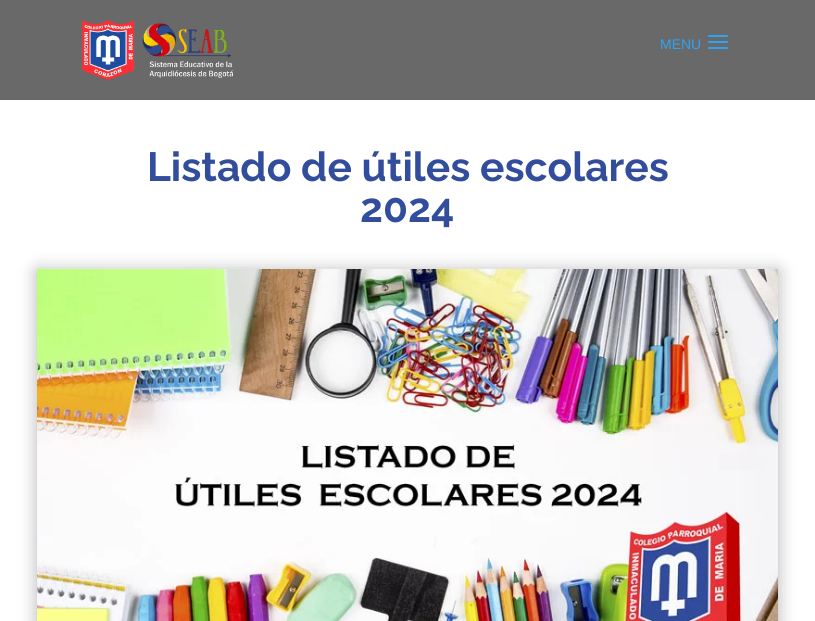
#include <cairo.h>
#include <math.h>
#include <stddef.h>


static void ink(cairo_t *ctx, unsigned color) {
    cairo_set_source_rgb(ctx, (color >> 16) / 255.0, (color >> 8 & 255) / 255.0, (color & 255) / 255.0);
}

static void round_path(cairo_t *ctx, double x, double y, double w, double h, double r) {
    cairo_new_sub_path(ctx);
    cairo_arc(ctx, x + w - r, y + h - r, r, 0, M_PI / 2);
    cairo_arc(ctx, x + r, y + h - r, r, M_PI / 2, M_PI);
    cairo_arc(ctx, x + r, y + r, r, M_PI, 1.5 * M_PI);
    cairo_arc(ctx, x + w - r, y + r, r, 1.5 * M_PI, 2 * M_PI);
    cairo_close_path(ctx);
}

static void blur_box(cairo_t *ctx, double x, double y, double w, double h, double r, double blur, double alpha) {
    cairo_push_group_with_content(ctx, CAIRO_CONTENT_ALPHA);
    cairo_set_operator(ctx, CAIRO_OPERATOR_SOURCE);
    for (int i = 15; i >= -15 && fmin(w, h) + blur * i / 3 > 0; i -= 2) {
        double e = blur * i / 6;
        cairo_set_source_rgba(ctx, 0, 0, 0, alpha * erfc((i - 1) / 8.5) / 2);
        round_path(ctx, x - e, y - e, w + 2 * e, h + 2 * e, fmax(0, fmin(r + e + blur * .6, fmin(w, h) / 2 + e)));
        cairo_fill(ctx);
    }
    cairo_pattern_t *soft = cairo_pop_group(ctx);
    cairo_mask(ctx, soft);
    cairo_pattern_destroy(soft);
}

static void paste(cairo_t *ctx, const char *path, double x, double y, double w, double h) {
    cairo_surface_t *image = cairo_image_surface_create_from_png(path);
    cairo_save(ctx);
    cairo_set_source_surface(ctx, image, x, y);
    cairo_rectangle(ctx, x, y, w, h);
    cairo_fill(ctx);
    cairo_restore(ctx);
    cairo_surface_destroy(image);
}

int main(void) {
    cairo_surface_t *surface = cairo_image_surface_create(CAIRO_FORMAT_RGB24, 815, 621);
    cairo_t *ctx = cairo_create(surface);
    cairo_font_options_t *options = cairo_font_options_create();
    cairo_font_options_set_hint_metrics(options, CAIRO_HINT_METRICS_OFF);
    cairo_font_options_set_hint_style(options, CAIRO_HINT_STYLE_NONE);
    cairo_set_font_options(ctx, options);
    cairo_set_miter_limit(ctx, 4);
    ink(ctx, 0xFFFFFF);
    cairo_paint(ctx);
    ink(ctx, 0x696969);
    cairo_rectangle(ctx, 0, 0, 815, 100);
    cairo_fill(ctx);
    paste(ctx, "media/1.png", 82, 20, 151, 60);
    cairo_select_font_face(ctx, "Liberation Sans", CAIRO_FONT_SLANT_NORMAL, CAIRO_FONT_WEIGHT_NORMAL);
    cairo_set_font_size(ctx, 14);
    ink(ctx, 0x2EA3F2);
    cairo_move_to(ctx, 660, 49);
    cairo_show_text(ctx, "MENU");
    paste(ctx, "media/2.png", 708, 35, 20, 14);
    cairo_select_font_face(ctx, "Raleway Thin", CAIRO_FONT_SLANT_NORMAL, CAIRO_FONT_WEIGHT_NORMAL);
    cairo_set_font_size(ctx, 40.75);
    ink(ctx, 0x334D9D);
    cairo_move_to(ctx, 147, 181);
    cairo_show_text(ctx, "Listado de útiles escolares");
    cairo_move_to(ctx, 360, 222);
    cairo_show_text(ctx, "2024");
    ink(ctx, 0x000000);
    blur_box(ctx, 37, 271, 741, 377, 0, 9, 0.3);
    paste(ctx, "media/3.png", 37, 269, 741, 352);
    cairo_surface_write_to_png(surface, "image.png");
    cairo_font_options_destroy(options);
    cairo_destroy(ctx);
    cairo_surface_destroy(surface);
    return 0;
}
